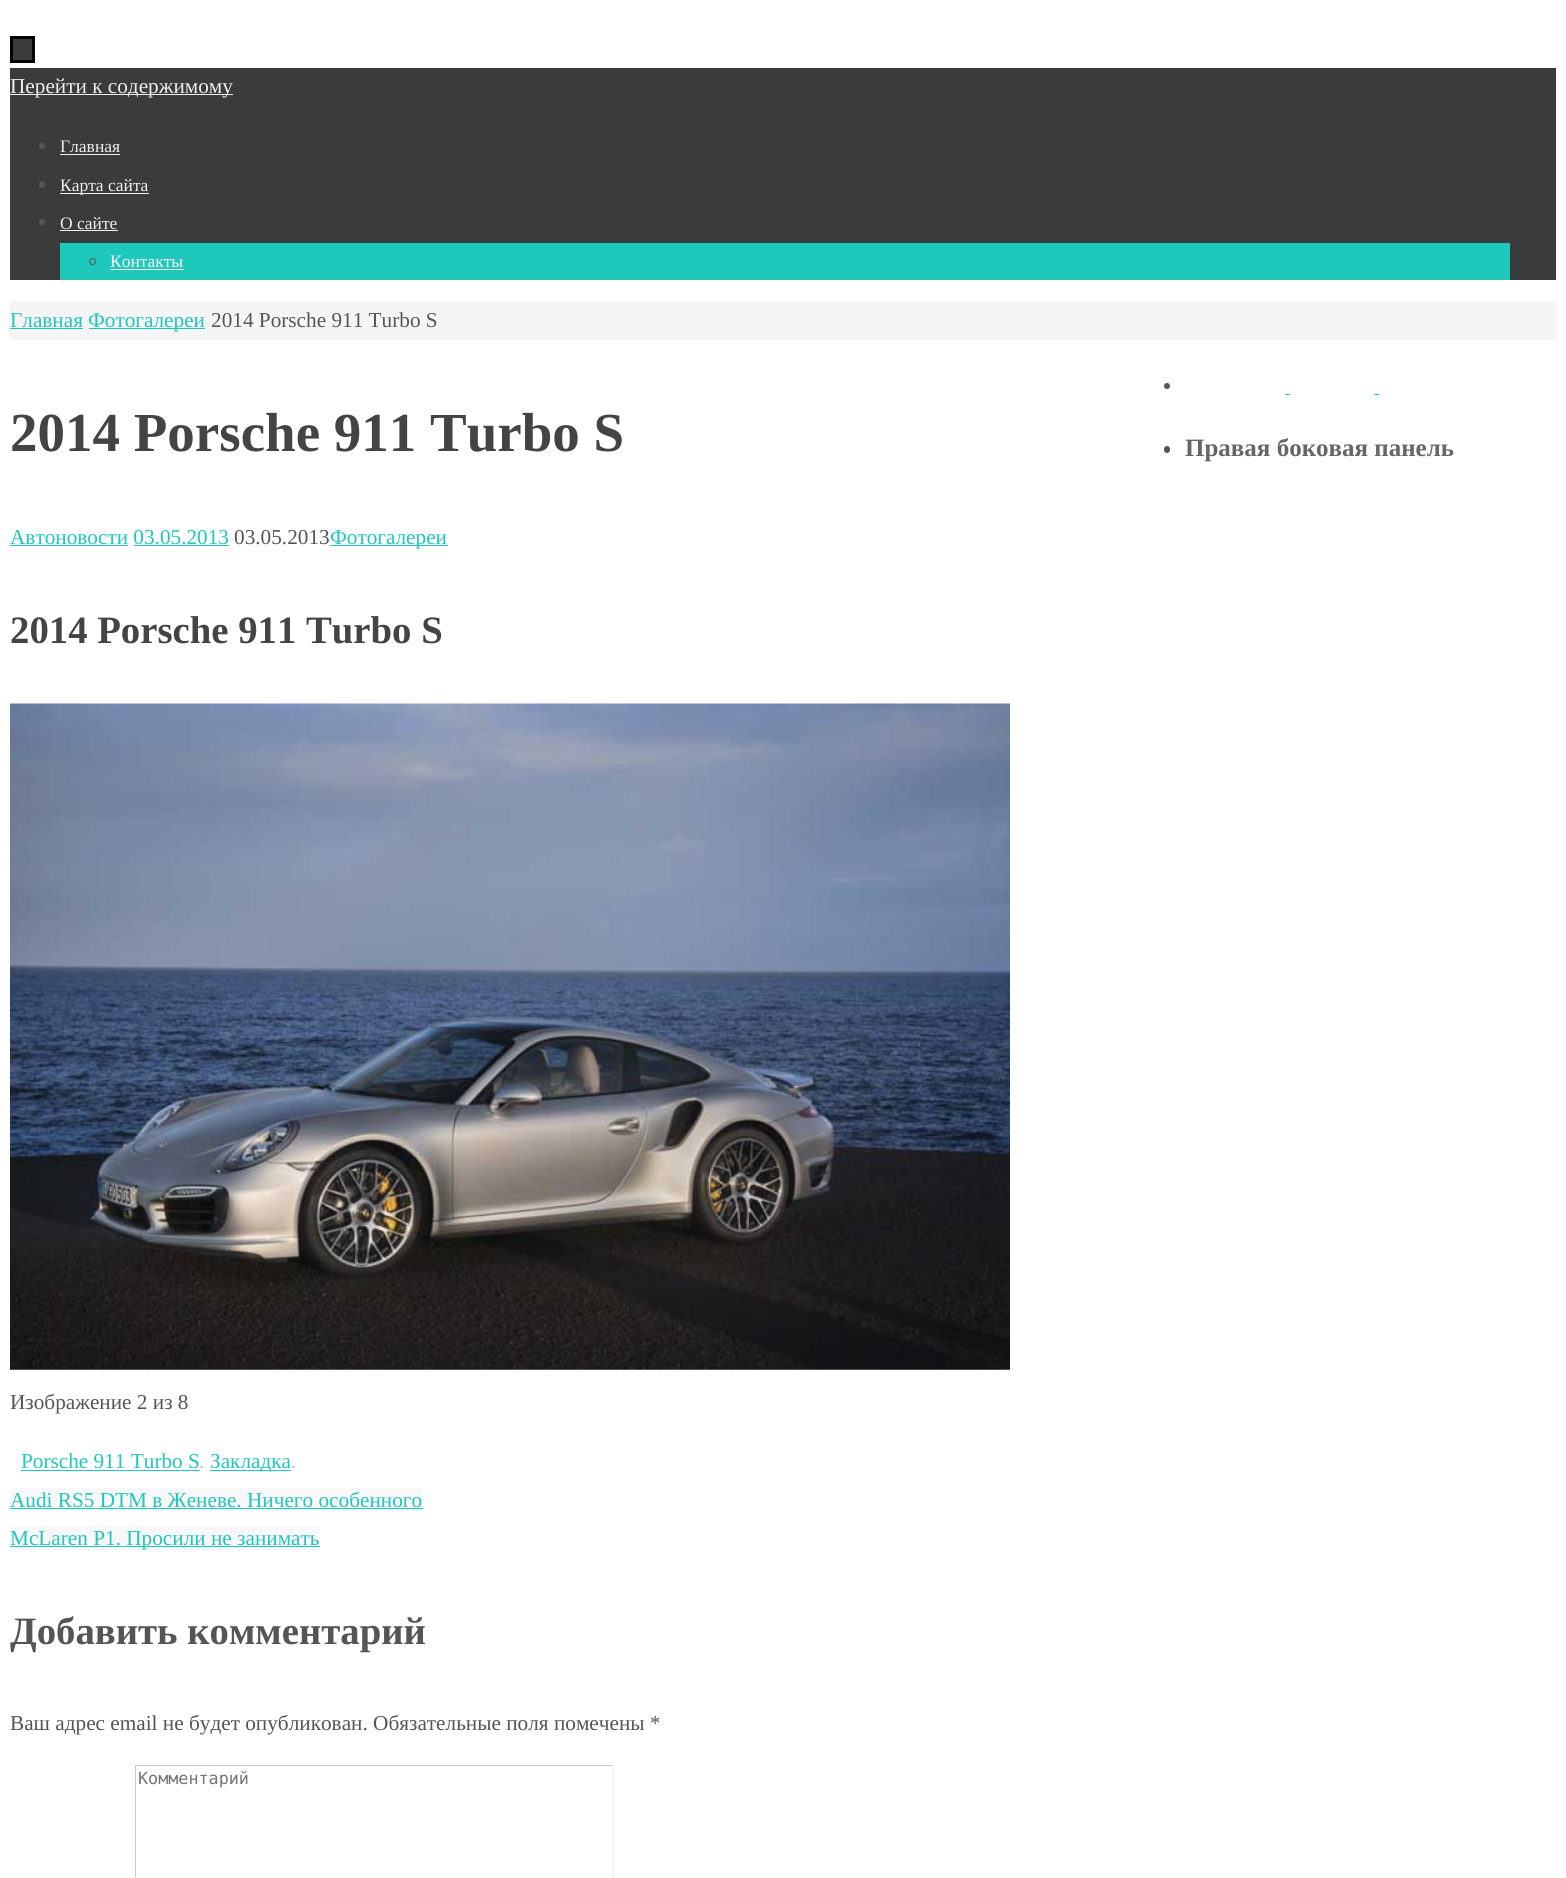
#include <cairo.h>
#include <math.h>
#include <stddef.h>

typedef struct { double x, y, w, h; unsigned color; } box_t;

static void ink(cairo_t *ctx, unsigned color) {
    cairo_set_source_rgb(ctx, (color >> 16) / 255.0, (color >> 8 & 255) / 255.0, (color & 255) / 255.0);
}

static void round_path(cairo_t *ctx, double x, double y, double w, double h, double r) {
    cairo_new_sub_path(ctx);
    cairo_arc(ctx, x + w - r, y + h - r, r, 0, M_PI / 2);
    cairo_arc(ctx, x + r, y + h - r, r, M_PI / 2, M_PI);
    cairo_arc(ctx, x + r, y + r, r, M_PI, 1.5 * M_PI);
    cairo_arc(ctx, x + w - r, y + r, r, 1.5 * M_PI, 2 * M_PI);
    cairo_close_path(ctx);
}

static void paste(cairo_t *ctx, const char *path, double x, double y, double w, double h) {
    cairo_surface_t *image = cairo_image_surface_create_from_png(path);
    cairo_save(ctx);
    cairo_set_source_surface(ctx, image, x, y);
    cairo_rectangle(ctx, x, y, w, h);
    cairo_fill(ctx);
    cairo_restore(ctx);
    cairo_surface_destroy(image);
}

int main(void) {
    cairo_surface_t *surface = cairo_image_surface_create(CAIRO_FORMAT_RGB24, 1566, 1878);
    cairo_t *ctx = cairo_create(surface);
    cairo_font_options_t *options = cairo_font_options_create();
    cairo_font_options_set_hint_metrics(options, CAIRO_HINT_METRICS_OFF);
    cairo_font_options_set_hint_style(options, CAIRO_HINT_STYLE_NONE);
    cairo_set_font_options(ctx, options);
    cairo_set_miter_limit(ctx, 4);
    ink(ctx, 0xFFFFFF);
    cairo_paint(ctx);
    ink(ctx, 0x3A3B3D);
    cairo_rectangle(ctx, 11.5, 37.5, 22, 24);
    cairo_fill_preserve(ctx);
    ink(ctx, 0x000000);
    cairo_set_line_width(ctx, 3);
    cairo_stroke(ctx);
    ink(ctx, 0x3A3B3D);
    cairo_rectangle(ctx, 10, 68, 1546, 212);
    cairo_fill(ctx);
    ink(ctx, 0xEEEEEE);
    cairo_rectangle(ctx, 10, 94, 223, 1);
    cairo_fill(ctx);
    cairo_select_font_face(ctx, "Liberation Serif", CAIRO_FONT_SLANT_NORMAL, CAIRO_FONT_WEIGHT_NORMAL);
    cairo_set_font_size(ctx, 21.25);
    cairo_move_to(ctx, 10, 93);
    cairo_show_text(ctx, "Перейти к содержимому");
    ink(ctx, 0x555555);
    cairo_new_path(ctx);
    cairo_arc(ctx, 42, 146, 3, 0, 2 * M_PI);
    cairo_fill(ctx);
    cairo_set_font_size(ctx, 17.5);
    ink(ctx, 0xEEEEEE);
    cairo_move_to(ctx, 60, 152);
    cairo_show_text(ctx, "Главная");
    cairo_rectangle(ctx, 60, 154, 60, 1);
    cairo_fill(ctx);
    ink(ctx, 0x555555);
    round_path(ctx, 39, 181, 6, 7, 3);
    cairo_fill(ctx);
    ink(ctx, 0xEEEEEE);
    cairo_rectangle(ctx, 60, 193, 89, 1);
    cairo_fill(ctx);
    cairo_move_to(ctx, 60, 191);
    cairo_show_text(ctx, "Карта сайта");
    ink(ctx, 0x555555);
    cairo_new_path(ctx);
    cairo_arc(ctx, 42, 222, 3, 0, 2 * M_PI);
    cairo_fill(ctx);
    ink(ctx, 0xEEEEEE);
    cairo_move_to(ctx, 60, 229);
    cairo_show_text(ctx, "О сайте");
    cairo_rectangle(ctx, 60, 230, 58, 1);
    cairo_fill(ctx);
    ink(ctx, 0x1EC8BB);
    cairo_rectangle(ctx, 60, 243, 1450, 37);
    cairo_fill(ctx);
    cairo_arc(ctx, 92.5, 261.5, 3, 0, 2 * M_PI);
    ink(ctx, 0x555555);
    cairo_set_line_width(ctx, 1);
    cairo_stroke(ctx);
    ink(ctx, 0xFFFFFF);
    cairo_move_to(ctx, 110, 267);
    cairo_show_text(ctx, "Контакты");
    cairo_rectangle(ctx, 110, 269, 74, 1);
    cairo_fill(ctx);
    ink(ctx, 0xF5F5F5);
    cairo_rectangle(ctx, 10, 301, 1546, 39);
    cairo_fill(ctx);
    cairo_set_font_size(ctx, 21.25);
    ink(ctx, 0x1EC8BB);
    cairo_move_to(ctx, 10, 327);
    cairo_show_text(ctx, "Главная");
    cairo_rectangle(ctx, 10, 328, 73, 1);
    cairo_fill(ctx);
    cairo_rectangle(ctx, 89, 328, 116, 1);
    cairo_fill(ctx);
    cairo_move_to(ctx, 88, 327);
    cairo_show_text(ctx, "Фотогалереи");
    ink(ctx, 0x555555);
    cairo_move_to(ctx, 211, 327);
    cairo_show_text(ctx, "2014 Porsche 911 Turbo S");
    cairo_select_font_face(ctx, "Liberation Serif", CAIRO_FONT_SLANT_NORMAL, CAIRO_FONT_WEIGHT_BOLD);
    cairo_set_font_size(ctx, 55);
    ink(ctx, 0x444444);
    cairo_move_to(ctx, 10, 451);
    cairo_show_text(ctx, "2014 Porsche 911 Turbo S");
    cairo_select_font_face(ctx, "Liberation Serif", CAIRO_FONT_SLANT_NORMAL, CAIRO_FONT_WEIGHT_NORMAL);
    cairo_set_font_size(ctx, 21.25);
    ink(ctx, 0x1EC8BB);
    cairo_move_to(ctx, 10, 544);
    cairo_show_text(ctx, "Автоновости 03.05.2013");
    cairo_rectangle(ctx, 10, 545, 118, 1);
    cairo_fill(ctx);
    ink(ctx, 0x555555);
    cairo_move_to(ctx, 234, 544);
    cairo_show_text(ctx, "03.05.2013");
    ink(ctx, 0x1EC8BB);
    cairo_rectangle(ctx, 330, 545, 118, 1);
    cairo_fill(ctx);
    cairo_move_to(ctx, 330, 544);
    cairo_show_text(ctx, "Фотогалереи");
    cairo_rectangle(ctx, 134, 545, 95, 1);
    cairo_fill(ctx);
    cairo_select_font_face(ctx, "Liberation Serif", CAIRO_FONT_SLANT_NORMAL, CAIRO_FONT_WEIGHT_BOLD);
    cairo_set_font_size(ctx, 38.75);
    ink(ctx, 0x444444);
    cairo_move_to(ctx, 10, 643);
    cairo_show_text(ctx, "2014 Porsche 911 Turbo S");
    paste(ctx, "media/1.png", 10, 703, 1000, 667);
    cairo_select_font_face(ctx, "Liberation Serif", CAIRO_FONT_SLANT_NORMAL, CAIRO_FONT_WEIGHT_NORMAL);
    cairo_set_font_size(ctx, 21.25);
    ink(ctx, 0x555555);
    cairo_move_to(ctx, 10, 1409);
    cairo_show_text(ctx, "Изображение 2 из 8");
    ink(ctx, 0x1EC8BB);
    cairo_move_to(ctx, 21, 1468);
    cairo_show_text(ctx, "Porsche 911 Turbo S");
    ink(ctx, 0xC1C1C1);
    cairo_move_to(ctx, 199, 1468);
    cairo_show_text(ctx, ".");
    ink(ctx, 0x1EC8BB);
    cairo_rectangle(ctx, 21, 1470, 179, 1);
    cairo_fill(ctx);
    cairo_rectangle(ctx, 210, 1470, 81, 1);
    cairo_fill(ctx);
    cairo_move_to(ctx, 210, 1468);
    cairo_show_text(ctx, "Закладка");
    ink(ctx, 0xC1C1C1);
    cairo_move_to(ctx, 291, 1468);
    cairo_show_text(ctx, ".");
    ink(ctx, 0xF8F8F8);
    cairo_rectangle(ctx, 10, 1488, 413, 23);
    cairo_fill(ctx);
    ink(ctx, 0x1EC8BB);
    cairo_move_to(ctx, 10, 1507);
    cairo_show_text(ctx, "Audi RS5 DTM в Женеве. Ничего особенного");
    {
        static const box_t items[] = {
            {10, 1508, 413, 1, 0x1EC8BB},
            {10, 1526, 310, 24, 0xF8F8F8},
            {10, 1546, 310, 1, 0x1EC8BB},
        };
        for (size_t i = 0; i < sizeof items / sizeof *items; i++) {
            ink(ctx, items[i].color);
            cairo_rectangle(ctx, items[i].x, items[i].y, items[i].w, items[i].h);
            cairo_fill(ctx);
        }
    }
    cairo_move_to(ctx, 10, 1545);
    cairo_show_text(ctx, "McLaren P1. Просили не занимать");
    cairo_select_font_face(ctx, "Liberation Serif", CAIRO_FONT_SLANT_NORMAL, CAIRO_FONT_WEIGHT_BOLD);
    cairo_set_font_size(ctx, 38.75);
    ink(ctx, 0x555555);
    cairo_move_to(ctx, 10, 1644);
    cairo_show_text(ctx, "Добавить комментарий");
    cairo_select_font_face(ctx, "Liberation Serif", CAIRO_FONT_SLANT_NORMAL, CAIRO_FONT_WEIGHT_NORMAL);
    cairo_set_font_size(ctx, 21.25);
    cairo_move_to(ctx, 10, 1730);
    cairo_show_text(ctx, "Ваш адрес email не будет опубликован. Обязательные поля помечены *");
    {
        static const box_t items[] = {
            {135, 1765, 479, 1, 0xCCCCCC},
            {613, 1765, 1, 113, 0xEEEEEE},
            {135, 1765, 1, 113, 0xCCCCCC},
        };
        for (size_t i = 0; i < sizeof items / sizeof *items; i++) {
            ink(ctx, items[i].color);
            cairo_rectangle(ctx, items[i].x, items[i].y, items[i].w, items[i].h);
            cairo_fill(ctx);
        }
    }
    cairo_select_font_face(ctx, "DejaVu Sans Mono", CAIRO_FONT_SLANT_NORMAL, CAIRO_FONT_WEIGHT_NORMAL);
    cairo_set_font_size(ctx, 16.75);
    ink(ctx, 0x757575);
    cairo_move_to(ctx, 138, 1784);
    cairo_show_text(ctx, "Комментарий");
    ink(ctx, 0x555555);
    cairo_new_path(ctx);
    cairo_arc(ctx, 1167, 386, 3, 0, 2 * M_PI);
    cairo_fill(ctx);
    ink(ctx, 0x1EC8BB);
    cairo_rectangle(ctx, 1285, 394, 5, 1);
    cairo_fill(ctx);
    cairo_rectangle(ctx, 1374, 394, 5, 1);
    cairo_fill(ctx);
    ink(ctx, 0x555555);
    round_path(ctx, 1164, 446, 6, 7, 3);
    cairo_fill(ctx);
    cairo_select_font_face(ctx, "Liberation Serif", CAIRO_FONT_SLANT_NORMAL, CAIRO_FONT_WEIGHT_BOLD);
    cairo_set_font_size(ctx, 25);
    ink(ctx, 0x666666);
    cairo_move_to(ctx, 1185, 456);
    cairo_show_text(ctx, "Правая боковая панель");
    cairo_surface_write_to_png(surface, "image.png");
    cairo_font_options_destroy(options);
    cairo_destroy(ctx);
    cairo_surface_destroy(surface);
    return 0;
}
